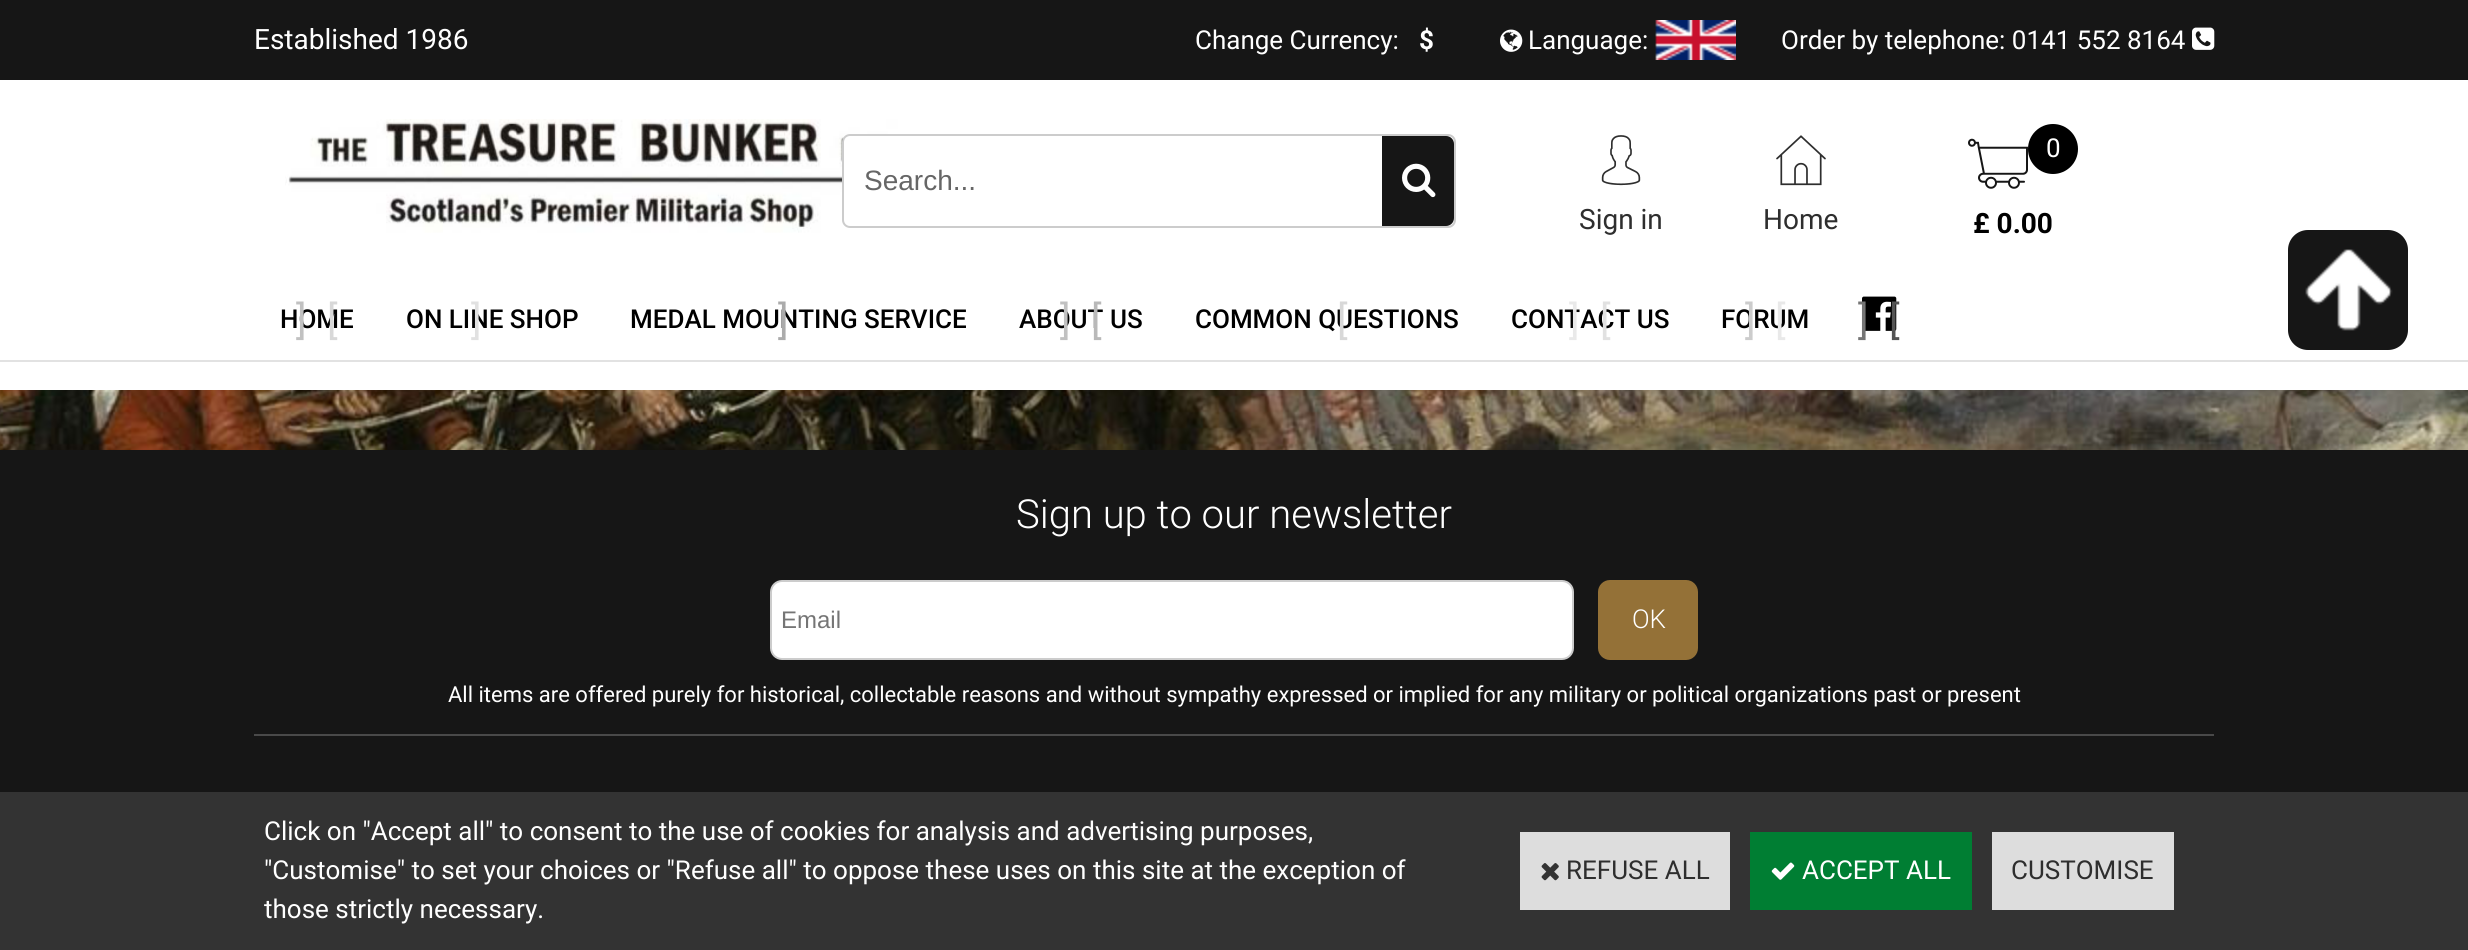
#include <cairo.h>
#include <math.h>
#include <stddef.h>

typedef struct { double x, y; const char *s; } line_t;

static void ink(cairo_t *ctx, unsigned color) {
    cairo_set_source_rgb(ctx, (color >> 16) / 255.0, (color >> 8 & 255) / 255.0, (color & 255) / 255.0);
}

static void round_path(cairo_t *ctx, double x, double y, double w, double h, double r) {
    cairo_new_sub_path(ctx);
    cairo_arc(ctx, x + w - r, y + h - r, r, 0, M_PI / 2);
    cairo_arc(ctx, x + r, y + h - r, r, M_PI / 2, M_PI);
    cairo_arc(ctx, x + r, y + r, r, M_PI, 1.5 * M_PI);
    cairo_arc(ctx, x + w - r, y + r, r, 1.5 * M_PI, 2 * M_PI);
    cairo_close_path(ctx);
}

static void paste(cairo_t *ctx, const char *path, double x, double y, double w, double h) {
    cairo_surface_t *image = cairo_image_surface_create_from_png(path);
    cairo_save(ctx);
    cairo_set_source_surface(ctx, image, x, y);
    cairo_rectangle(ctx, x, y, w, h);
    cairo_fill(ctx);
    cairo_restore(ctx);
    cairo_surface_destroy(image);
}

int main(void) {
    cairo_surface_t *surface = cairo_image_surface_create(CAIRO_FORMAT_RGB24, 2468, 950);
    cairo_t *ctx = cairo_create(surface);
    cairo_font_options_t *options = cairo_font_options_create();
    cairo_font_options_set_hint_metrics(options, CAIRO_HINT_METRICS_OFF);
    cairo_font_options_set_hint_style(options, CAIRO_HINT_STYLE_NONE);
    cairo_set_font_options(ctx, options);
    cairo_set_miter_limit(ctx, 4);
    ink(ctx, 0xFFFFFF);
    cairo_paint(ctx);
    paste(ctx, "media/1.png", 0, 390, 2468, 60);
    ink(ctx, 0x161616);
    cairo_rectangle(ctx, 0, 0, 2468, 80);
    cairo_fill(ctx);
    ink(ctx, 0xE2E2E2);
    cairo_rectangle(ctx, 0, 360, 2468, 2);
    cairo_fill(ctx);
    cairo_select_font_face(ctx, "Roboto", CAIRO_FONT_SLANT_NORMAL, CAIRO_FONT_WEIGHT_NORMAL);
    cairo_set_font_size(ctx, 28);
    ink(ctx, 0xFFFFFF);
    cairo_move_to(ctx, 254, 49);
    cairo_show_text(ctx, "Established 1986");
    cairo_set_font_size(ctx, 26);
    cairo_move_to(ctx, 1195, 49);
    cairo_show_text(ctx, "Change Currency:");
    cairo_select_font_face(ctx, "Roboto", CAIRO_FONT_SLANT_NORMAL, CAIRO_FONT_WEIGHT_BOLD);
    cairo_move_to(ctx, 1419, 49);
    cairo_show_text(ctx, "$");
    paste(ctx, "media/2.png", 1500, 29, 23, 23);
    cairo_select_font_face(ctx, "Roboto", CAIRO_FONT_SLANT_NORMAL, CAIRO_FONT_WEIGHT_NORMAL);
    cairo_move_to(ctx, 1528, 49);
    cairo_show_text(ctx, "Language:");
    paste(ctx, "media/3.png", 1655, 20, 81, 40);
    cairo_move_to(ctx, 1781, 49);
    cairo_show_text(ctx, "Order by telephone: 0141 552 8164");
    paste(ctx, "media/4.png", 2192, 27, 23, 23);
    paste(ctx, "media/5.png", 285, 119, 630, 114);
    round_path(ctx, 843, 135, 612, 92, 7);
    cairo_fill_preserve(ctx);
    ink(ctx, 0xCCCCCC);
    cairo_stroke(ctx);
    cairo_select_font_face(ctx, "Liberation Sans", CAIRO_FONT_SLANT_NORMAL, CAIRO_FONT_WEIGHT_NORMAL);
    cairo_set_font_size(ctx, 28);
    ink(ctx, 0x666666);
    cairo_move_to(ctx, 864, 190);
    cairo_show_text(ctx, "Search...");
    ink(ctx, 0x161616);
    cairo_new_path(ctx);
    cairo_move_to(ctx, 1382, 136);
    cairo_line_to(ctx, 1446, 136);
    cairo_curve_to(ctx, 1450.5, 136, 1454, 139.5, 1454, 144);
    cairo_line_to(ctx, 1454, 218);
    cairo_curve_to(ctx, 1454, 222.5, 1450.5, 226, 1446, 226);
    cairo_line_to(ctx, 1382, 226);
    cairo_close_path(ctx);
    cairo_fill(ctx);
    paste(ctx, "media/6.png", 1402, 163, 34, 35);
    paste(ctx, "media/7.png", 1601, 135, 40, 51);
    cairo_select_font_face(ctx, "Roboto", CAIRO_FONT_SLANT_NORMAL, CAIRO_FONT_WEIGHT_NORMAL);
    ink(ctx, 0x2E2E2E);
    cairo_move_to(ctx, 1579, 229);
    cairo_show_text(ctx, "Sign in");
    paste(ctx, "media/8.png", 1776, 135, 50, 51);
    cairo_move_to(ctx, 1763, 229);
    cairo_show_text(ctx, "Home");
    paste(ctx, "media/9.png", 1968, 138, 60, 51);
    ink(ctx, 0x000000);
    cairo_arc(ctx, 2053, 149, 25, 0, 2 * M_PI);
    cairo_fill(ctx);
    cairo_set_font_size(ctx, 26);
    ink(ctx, 0xFFFFFF);
    cairo_move_to(ctx, 2046, 157);
    cairo_show_text(ctx, "0");
    cairo_select_font_face(ctx, "Roboto", CAIRO_FONT_SLANT_NORMAL, CAIRO_FONT_WEIGHT_BOLD);
    cairo_set_font_size(ctx, 28);
    ink(ctx, 0x000000);
    cairo_move_to(ctx, 1973, 233);
    cairo_show_text(ctx, "£ 0.00");
    cairo_select_font_face(ctx, "Roboto Medium", CAIRO_FONT_SLANT_NORMAL, CAIRO_FONT_WEIGHT_NORMAL);
    cairo_set_font_size(ctx, 26);
    cairo_move_to(ctx, 280, 328);
    cairo_show_text(ctx, "HOME");
    cairo_select_font_face(ctx, "Roboto", CAIRO_FONT_SLANT_NORMAL, CAIRO_FONT_WEIGHT_NORMAL);
    cairo_set_font_size(ctx, 40);
    ink(ctx, 0xC1C1C1);
    cairo_move_to(ctx, 296, 334);
    cairo_show_text(ctx, "]");
    ink(ctx, 0xD8D8D8);
    cairo_move_to(ctx, 327, 334);
    cairo_show_text(ctx, "[");
    cairo_select_font_face(ctx, "Roboto Medium", CAIRO_FONT_SLANT_NORMAL, CAIRO_FONT_WEIGHT_NORMAL);
    cairo_set_font_size(ctx, 26);
    ink(ctx, 0x000000);
    cairo_move_to(ctx, 406, 328);
    cairo_show_text(ctx, "ON LINE SHOP");
    cairo_select_font_face(ctx, "Roboto", CAIRO_FONT_SLANT_NORMAL, CAIRO_FONT_WEIGHT_NORMAL);
    cairo_set_font_size(ctx, 40);
    ink(ctx, 0xE1E1E1);
    cairo_move_to(ctx, 471, 334);
    cairo_show_text(ctx, "]");
    cairo_select_font_face(ctx, "Roboto Medium", CAIRO_FONT_SLANT_NORMAL, CAIRO_FONT_WEIGHT_NORMAL);
    cairo_set_font_size(ctx, 26);
    ink(ctx, 0x000000);
    cairo_move_to(ctx, 630, 328);
    cairo_show_text(ctx, "MEDAL MOUNTING SERVICE");
    cairo_select_font_face(ctx, "Roboto", CAIRO_FONT_SLANT_NORMAL, CAIRO_FONT_WEIGHT_NORMAL);
    cairo_set_font_size(ctx, 40);
    ink(ctx, 0xABABAB);
    cairo_move_to(ctx, 778, 334);
    cairo_show_text(ctx, "]");
    cairo_select_font_face(ctx, "Roboto Medium", CAIRO_FONT_SLANT_NORMAL, CAIRO_FONT_WEIGHT_NORMAL);
    cairo_set_font_size(ctx, 26);
    ink(ctx, 0x000000);
    cairo_move_to(ctx, 1019, 328);
    cairo_show_text(ctx, "ABOUT US");
    cairo_select_font_face(ctx, "Roboto", CAIRO_FONT_SLANT_NORMAL, CAIRO_FONT_WEIGHT_NORMAL);
    cairo_set_font_size(ctx, 40);
    ink(ctx, 0xC1C1C1);
    cairo_move_to(ctx, 1060, 334);
    cairo_show_text(ctx, "]");
    ink(ctx, 0xB9B9B9);
    cairo_move_to(ctx, 1091, 334);
    cairo_show_text(ctx, "[");
    cairo_select_font_face(ctx, "Roboto Medium", CAIRO_FONT_SLANT_NORMAL, CAIRO_FONT_WEIGHT_NORMAL);
    cairo_set_font_size(ctx, 26);
    ink(ctx, 0x000000);
    cairo_move_to(ctx, 1195, 328);
    cairo_show_text(ctx, "COMMON QUESTIONS");
    cairo_select_font_face(ctx, "Roboto", CAIRO_FONT_SLANT_NORMAL, CAIRO_FONT_WEIGHT_NORMAL);
    cairo_set_font_size(ctx, 40);
    ink(ctx, 0xD8D8D8);
    cairo_move_to(ctx, 1337, 334);
    cairo_show_text(ctx, "[");
    cairo_select_font_face(ctx, "Roboto Medium", CAIRO_FONT_SLANT_NORMAL, CAIRO_FONT_WEIGHT_NORMAL);
    cairo_set_font_size(ctx, 26);
    ink(ctx, 0x000000);
    cairo_move_to(ctx, 1511, 328);
    cairo_show_text(ctx, "CONTACT US");
    cairo_select_font_face(ctx, "Roboto", CAIRO_FONT_SLANT_NORMAL, CAIRO_FONT_WEIGHT_NORMAL);
    cairo_set_font_size(ctx, 40);
    ink(ctx, 0xE9E9E9);
    cairo_move_to(ctx, 1569, 334);
    cairo_show_text(ctx, "]");
    ink(ctx, 0xE1E1E1);
    cairo_move_to(ctx, 1600, 334);
    cairo_show_text(ctx, "[");
    cairo_select_font_face(ctx, "Roboto Medium", CAIRO_FONT_SLANT_NORMAL, CAIRO_FONT_WEIGHT_NORMAL);
    cairo_set_font_size(ctx, 26);
    ink(ctx, 0x000000);
    cairo_move_to(ctx, 1721, 328);
    cairo_show_text(ctx, "FORUM");
    cairo_select_font_face(ctx, "Roboto", CAIRO_FONT_SLANT_NORMAL, CAIRO_FONT_WEIGHT_NORMAL);
    cairo_set_font_size(ctx, 40);
    ink(ctx, 0xCCCCCC);
    cairo_move_to(ctx, 1745, 334);
    cairo_show_text(ctx, "]");
    ink(ctx, 0xE9E9E9);
    cairo_move_to(ctx, 1775, 334);
    cairo_show_text(ctx, "[");
    paste(ctx, "media/10.png", 1862, 296, 35, 35);
    ink(ctx, 0x757575);
    cairo_move_to(ctx, 1858, 334);
    cairo_show_text(ctx, "]");
    ink(ctx, 0x545454);
    cairo_move_to(ctx, 1889, 334);
    cairo_show_text(ctx, "[");
    ink(ctx, 0x161616);
    round_path(ctx, 2288, 230, 120, 120, 20);
    cairo_fill(ctx);
    paste(ctx, "media/11.png", 2305, 249, 88, 82);
    cairo_rectangle(ctx, 0, 450, 2468, 342);
    cairo_fill(ctx);
    ink(ctx, 0x494949);
    cairo_rectangle(ctx, 254, 734, 1960, 2);
    cairo_fill(ctx);
    cairo_select_font_face(ctx, "Roboto Light", CAIRO_FONT_SLANT_NORMAL, CAIRO_FONT_WEIGHT_NORMAL);
    ink(ctx, 0xFFFFFF);
    cairo_move_to(ctx, 1016, 528);
    cairo_show_text(ctx, "Sign up to our newsletter");
    round_path(ctx, 771, 581, 802, 78, 11);
    cairo_fill_preserve(ctx);
    ink(ctx, 0xCCCCCC);
    cairo_stroke(ctx);
    cairo_select_font_face(ctx, "Liberation Sans", CAIRO_FONT_SLANT_NORMAL, CAIRO_FONT_WEIGHT_NORMAL);
    cairo_set_font_size(ctx, 24);
    ink(ctx, 0x757575);
    cairo_move_to(ctx, 781, 628);
    cairo_show_text(ctx, "Email");
    ink(ctx, 0x947137);
    round_path(ctx, 1598, 580, 100, 80, 12);
    cairo_fill(ctx);
    cairo_select_font_face(ctx, "Roboto Light", CAIRO_FONT_SLANT_NORMAL, CAIRO_FONT_WEIGHT_NORMAL);
    cairo_set_font_size(ctx, 26);
    ink(ctx, 0xFFFFFF);
    cairo_move_to(ctx, 1632, 628);
    cairo_show_text(ctx, "OK");
    cairo_select_font_face(ctx, "Roboto", CAIRO_FONT_SLANT_NORMAL, CAIRO_FONT_WEIGHT_NORMAL);
    cairo_set_font_size(ctx, 22);
    cairo_move_to(ctx, 448, 702);
    cairo_show_text(ctx, "All items are offered purely for historical, collectable reasons and without sympathy expressed or implied for any military or political organizations past or present");
    ink(ctx, 0x333333);
    cairo_rectangle(ctx, 0, 792, 2468, 158);
    cairo_fill(ctx);
    cairo_set_font_size(ctx, 26);
    ink(ctx, 0xFFFFFF);
    {
        static const line_t items[] = {
            {264, 840, "Click on \"Accept all\" to consent to the use of cookies for analysis and advertising purposes,"},
            {264, 879, "\"Customise\" to set your choices or \"Refuse all\" to oppose these uses on this site at the exception of"},
            {264, 918, "those strictly necessary."},
        };
        for (size_t i = 0; i < sizeof items / sizeof *items; i++) {
            cairo_move_to(ctx, items[i].x, items[i].y);
            cairo_show_text(ctx, items[i].s);
        }
    }
    ink(ctx, 0xDDDDDD);
    cairo_rectangle(ctx, 1520, 832, 210, 78);
    cairo_fill(ctx);
    paste(ctx, "media/12.png", 1541, 863, 18, 18);
    ink(ctx, 0x2E2E2E);
    cairo_move_to(ctx, 1566, 879);
    cairo_show_text(ctx, "REFUSE ALL");
    ink(ctx, 0x007E33);
    cairo_rectangle(ctx, 1750, 832, 222, 78);
    cairo_fill(ctx);
    paste(ctx, "media/13.png", 1771, 862, 24, 18);
    ink(ctx, 0xFFFFFF);
    cairo_move_to(ctx, 1802, 879);
    cairo_show_text(ctx, "ACCEPT ALL");
    ink(ctx, 0xDDDDDD);
    cairo_rectangle(ctx, 1992, 832, 182, 78);
    cairo_fill(ctx);
    ink(ctx, 0x2E2E2E);
    cairo_move_to(ctx, 2011, 879);
    cairo_show_text(ctx, "CUSTOMISE");
    cairo_surface_write_to_png(surface, "image.png");
    cairo_font_options_destroy(options);
    cairo_destroy(ctx);
    cairo_surface_destroy(surface);
    return 0;
}
